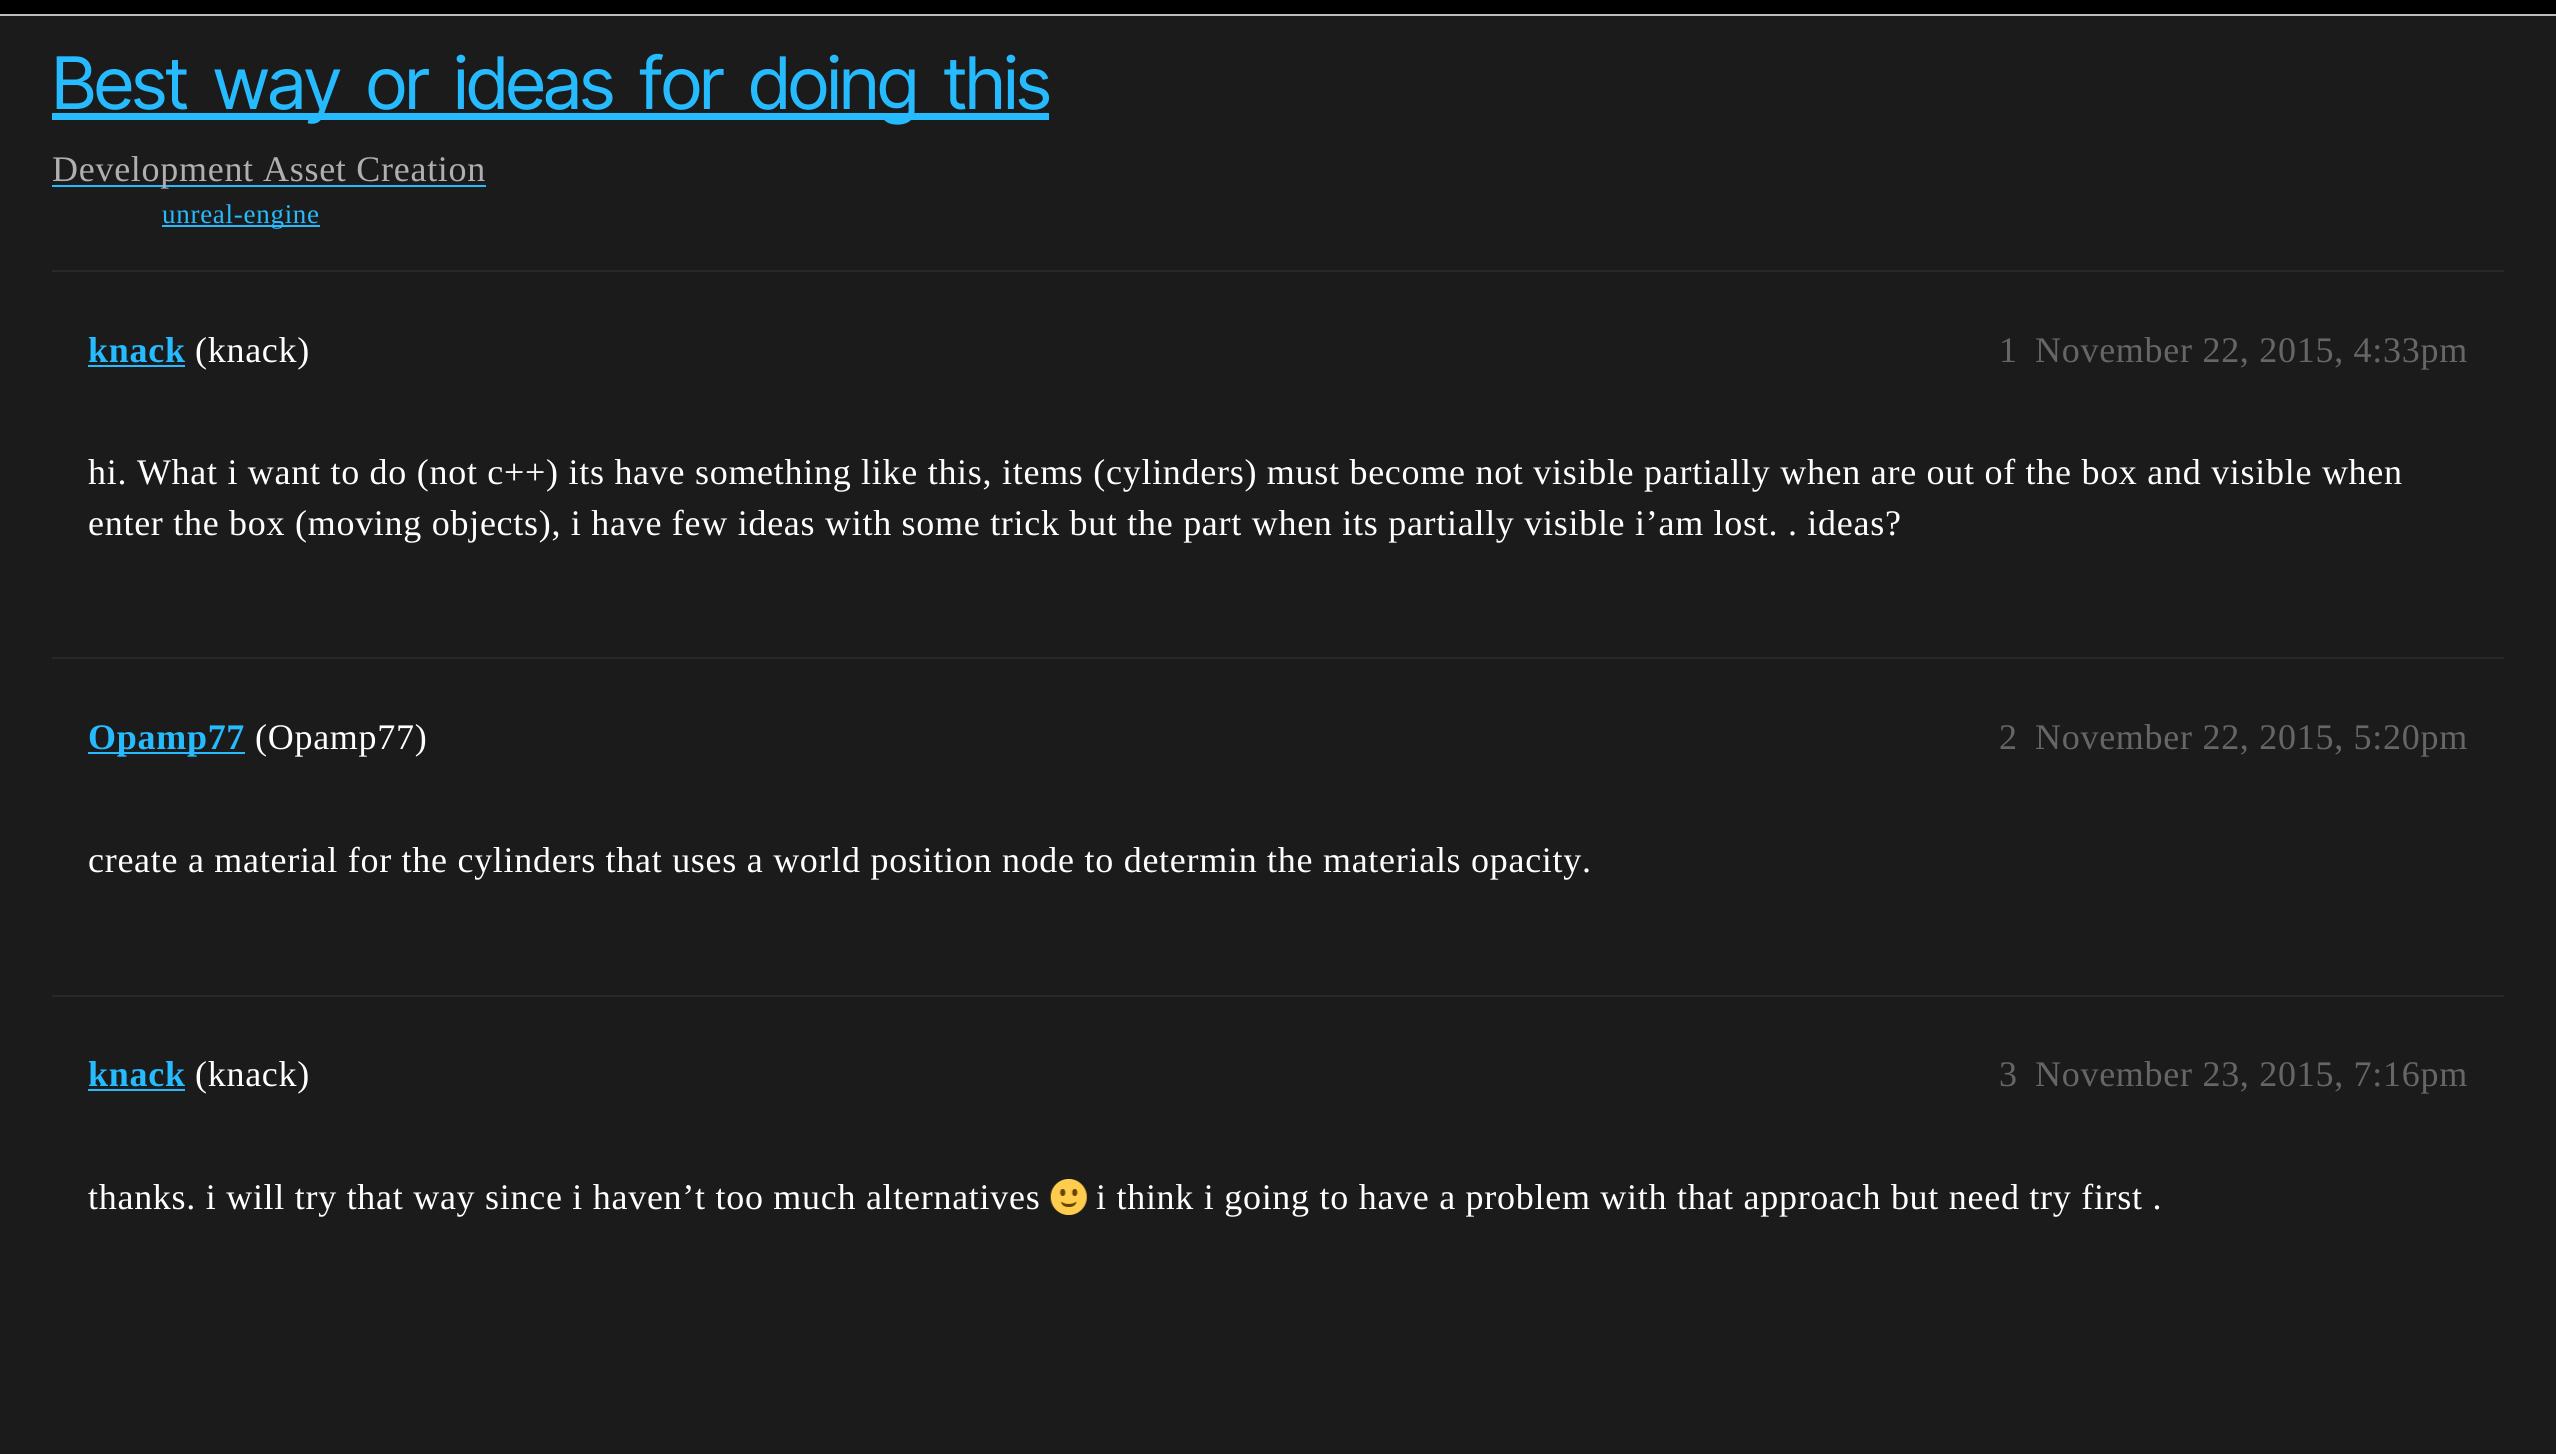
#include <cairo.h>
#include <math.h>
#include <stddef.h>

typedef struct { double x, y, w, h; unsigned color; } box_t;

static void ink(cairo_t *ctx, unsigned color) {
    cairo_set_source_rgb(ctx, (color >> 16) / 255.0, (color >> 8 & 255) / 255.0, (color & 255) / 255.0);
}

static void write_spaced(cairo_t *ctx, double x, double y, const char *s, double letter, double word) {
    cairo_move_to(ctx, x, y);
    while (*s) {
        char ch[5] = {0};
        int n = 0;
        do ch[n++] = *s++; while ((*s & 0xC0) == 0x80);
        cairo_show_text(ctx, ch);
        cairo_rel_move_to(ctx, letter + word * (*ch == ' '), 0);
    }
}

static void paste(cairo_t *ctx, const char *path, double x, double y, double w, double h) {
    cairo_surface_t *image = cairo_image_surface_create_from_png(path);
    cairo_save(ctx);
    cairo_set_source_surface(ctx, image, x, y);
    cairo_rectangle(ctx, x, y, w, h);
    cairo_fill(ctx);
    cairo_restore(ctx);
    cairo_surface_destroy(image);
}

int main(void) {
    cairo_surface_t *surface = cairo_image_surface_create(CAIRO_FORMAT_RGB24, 2556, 1454);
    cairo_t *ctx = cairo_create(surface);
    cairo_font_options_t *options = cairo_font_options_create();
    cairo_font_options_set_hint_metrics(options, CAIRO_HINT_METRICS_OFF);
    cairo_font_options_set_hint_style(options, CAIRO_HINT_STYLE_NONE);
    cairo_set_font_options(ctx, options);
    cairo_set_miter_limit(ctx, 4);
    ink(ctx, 0x1B1B1B);
    cairo_paint(ctx);
    {
        static const box_t items[] = {
            {0, 0, 2556, 14, 0x000000},
            {0, 14, 2556, 2, 0xBDBDBD},
            {52, 113, 997, 7, 0x26BBFF},
        };
        for (size_t i = 0; i < sizeof items / sizeof *items; i++) {
            ink(ctx, items[i].color);
            cairo_rectangle(ctx, items[i].x, items[i].y, items[i].w, items[i].h);
            cairo_fill(ctx);
        }
    }
    cairo_select_font_face(ctx, "Inter Tight", CAIRO_FONT_SLANT_NORMAL, CAIRO_FONT_WEIGHT_NORMAL);
    cairo_set_font_size(ctx, 72.4);
    write_spaced(ctx, 52, 109, "Best way or ideas for doing this", -1.1, 10.5);
    cairo_rectangle(ctx, 52, 185, 434, 2);
    cairo_fill(ctx);
    cairo_select_font_face(ctx, "Liberation Serif", CAIRO_FONT_SLANT_NORMAL, CAIRO_FONT_WEIGHT_NORMAL);
    cairo_set_font_size(ctx, 36);
    ink(ctx, 0xAFAFB0);
    write_spaced(ctx, 52, 181, "Development", 0.72, 0);
    write_spaced(ctx, 263, 181, "Asset Creation", 0.72, 0);
    ink(ctx, 0x26BBFF);
    cairo_rectangle(ctx, 162, 225, 158, 2);
    cairo_fill(ctx);
    cairo_set_font_size(ctx, 27);
    write_spaced(ctx, 162, 223, "unreal-engine", 0.72, 0);
    ink(ctx, 0x28282C);
    cairo_rectangle(ctx, 52, 270, 2452, 2);
    cairo_fill(ctx);
    cairo_select_font_face(ctx, "Liberation Serif", CAIRO_FONT_SLANT_NORMAL, CAIRO_FONT_WEIGHT_BOLD);
    cairo_set_font_size(ctx, 36);
    ink(ctx, 0x26BBFF);
    write_spaced(ctx, 88, 362, "knack", 0.72, 0);
    cairo_rectangle(ctx, 88, 365, 97, 2);
    cairo_fill(ctx);
    cairo_select_font_face(ctx, "Liberation Serif", CAIRO_FONT_SLANT_NORMAL, CAIRO_FONT_WEIGHT_NORMAL);
    ink(ctx, 0xFFFFFF);
    write_spaced(ctx, 195, 362, "(knack)", 0.72, 0);
    ink(ctx, 0x666666);
    write_spaced(ctx, 1999, 362, "1", 0.72, 0);
    write_spaced(ctx, 2035, 362, "November 22, 2015, 4:33pm", 0.72, 0);
    ink(ctx, 0xFFFFFF);
    write_spaced(ctx, 88, 484, "hi. What i want to do (not c++) its have something like this, items (cylinders) must become not visible partially when are out of the box and visible when", 0.72, 0);
    write_spaced(ctx, 88, 535, "enter the box (moving objects), i have few ideas with some trick but the part when its partially visible i’am lost. . ideas?", 0.72, 0);
    ink(ctx, 0x28282C);
    cairo_rectangle(ctx, 52, 657, 2452, 2);
    cairo_fill(ctx);
    ink(ctx, 0x26BBFF);
    cairo_rectangle(ctx, 88, 752, 157, 2);
    cairo_fill(ctx);
    cairo_select_font_face(ctx, "Liberation Serif", CAIRO_FONT_SLANT_NORMAL, CAIRO_FONT_WEIGHT_BOLD);
    write_spaced(ctx, 88, 749, "Opamp77", 0.72, 0);
    cairo_select_font_face(ctx, "Liberation Serif", CAIRO_FONT_SLANT_NORMAL, CAIRO_FONT_WEIGHT_NORMAL);
    ink(ctx, 0xFFFFFF);
    write_spaced(ctx, 255, 749, "(Opamp77)", 0.72, 0);
    ink(ctx, 0x666666);
    write_spaced(ctx, 1999, 749, "2", 0.72, 0);
    write_spaced(ctx, 2035, 749, "November 22, 2015, 5:20pm", 0.72, 0);
    ink(ctx, 0xFFFFFF);
    write_spaced(ctx, 88, 872, "create a material for the cylinders that uses a world position node to determin the materials opacity.", 0.72, 0);
    ink(ctx, 0x28282C);
    cairo_rectangle(ctx, 52, 995, 2452, 2);
    cairo_fill(ctx);
    cairo_select_font_face(ctx, "Liberation Serif", CAIRO_FONT_SLANT_NORMAL, CAIRO_FONT_WEIGHT_BOLD);
    ink(ctx, 0x26BBFF);
    write_spaced(ctx, 88, 1086, "knack", 0.72, 0);
    cairo_rectangle(ctx, 88, 1089, 97, 2);
    cairo_fill(ctx);
    cairo_select_font_face(ctx, "Liberation Serif", CAIRO_FONT_SLANT_NORMAL, CAIRO_FONT_WEIGHT_NORMAL);
    ink(ctx, 0xFFFFFF);
    write_spaced(ctx, 195, 1086, "(knack)", 0.72, 0);
    ink(ctx, 0x666666);
    write_spaced(ctx, 1999, 1086, "3", 0.72, 0);
    write_spaced(ctx, 2035, 1086, "November 23, 2015, 7:16pm", 0.72, 0);
    ink(ctx, 0xFFFFFF);
    write_spaced(ctx, 88, 1209, "thanks. i will try that way since i haven’t too much alternatives", 0.72, 0);
    paste(ctx, "media/1.png", 1050, 1179, 37, 36);
    write_spaced(ctx, 1096, 1209, "i think i going to have a problem with that approach but need try first .", 0.72, 0);
    cairo_surface_write_to_png(surface, "image.png");
    cairo_font_options_destroy(options);
    cairo_destroy(ctx);
    cairo_surface_destroy(surface);
    return 0;
}
